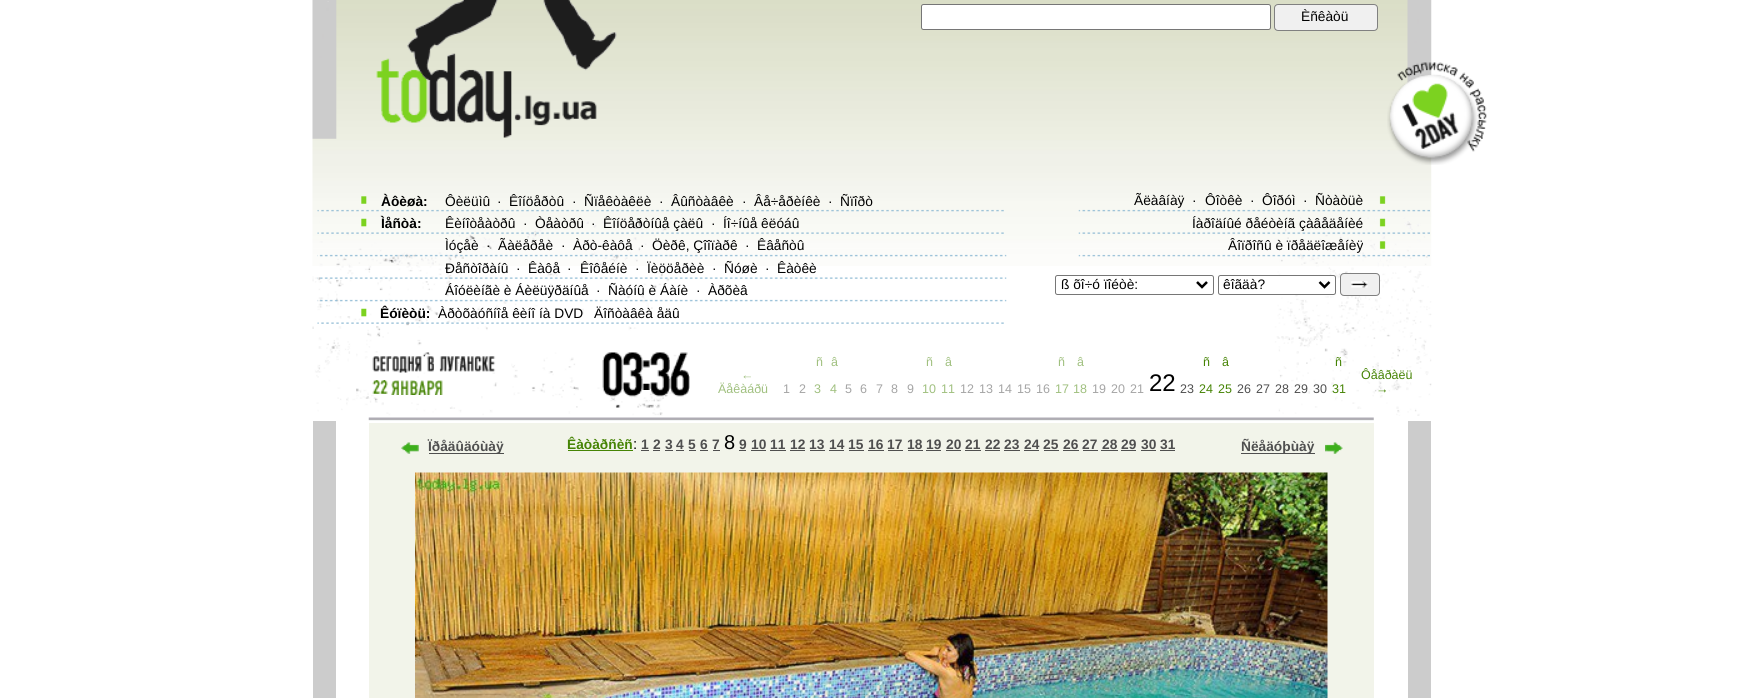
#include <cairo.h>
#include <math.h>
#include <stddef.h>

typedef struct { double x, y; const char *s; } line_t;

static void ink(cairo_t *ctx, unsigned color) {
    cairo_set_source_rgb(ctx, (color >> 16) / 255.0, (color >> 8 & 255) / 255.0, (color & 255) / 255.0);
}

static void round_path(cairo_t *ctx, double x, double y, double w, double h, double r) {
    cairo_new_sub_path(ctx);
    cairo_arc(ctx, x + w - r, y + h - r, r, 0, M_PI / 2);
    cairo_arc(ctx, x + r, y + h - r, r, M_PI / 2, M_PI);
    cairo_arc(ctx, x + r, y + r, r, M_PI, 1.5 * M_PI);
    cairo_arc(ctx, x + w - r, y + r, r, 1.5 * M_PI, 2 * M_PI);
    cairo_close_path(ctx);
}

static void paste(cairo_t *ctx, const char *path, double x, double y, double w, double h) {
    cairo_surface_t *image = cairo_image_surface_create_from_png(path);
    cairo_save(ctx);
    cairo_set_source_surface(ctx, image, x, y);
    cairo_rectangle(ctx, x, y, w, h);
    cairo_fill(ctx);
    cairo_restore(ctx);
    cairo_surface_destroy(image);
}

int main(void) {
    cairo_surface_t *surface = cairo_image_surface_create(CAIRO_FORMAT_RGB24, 1742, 698);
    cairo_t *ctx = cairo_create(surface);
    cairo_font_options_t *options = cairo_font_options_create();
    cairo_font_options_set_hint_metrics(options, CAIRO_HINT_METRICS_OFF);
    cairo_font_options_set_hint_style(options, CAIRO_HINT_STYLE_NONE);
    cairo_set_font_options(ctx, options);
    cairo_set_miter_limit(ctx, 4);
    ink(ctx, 0xFFFFFF);
    cairo_paint(ctx);
    paste(ctx, "media/21.png", 312, 0, 1120, 266);
    paste(ctx, "media/22.png", 312, 1, 1120, 415);
    ink(ctx, 0xFFFFFF);
    round_path(ctx, 921.5, 4.5, 349, 25, 2);
    cairo_fill_preserve(ctx);
    ink(ctx, 0x767676);
    cairo_set_line_width(ctx, 1);
    cairo_stroke(ctx);
    ink(ctx, 0xF0F0F0);
    round_path(ctx, 1274.5, 4.5, 103, 26, 3.5);
    cairo_fill_preserve(ctx);
    ink(ctx, 0x808080);
    cairo_stroke(ctx);
    cairo_select_font_face(ctx, "Liberation Sans", CAIRO_FONT_SLANT_NORMAL, CAIRO_FONT_WEIGHT_NORMAL);
    cairo_set_font_size(ctx, 13.75);
    ink(ctx, 0x000000);
    cairo_move_to(ctx, 1301, 21);
    cairo_show_text(ctx, "Èñêàòü");
    paste(ctx, "media/1.png", 317, 196, 687, 16);
    cairo_select_font_face(ctx, "Liberation Sans", CAIRO_FONT_SLANT_NORMAL, CAIRO_FONT_WEIGHT_BOLD);
    cairo_move_to(ctx, 381, 206);
    cairo_show_text(ctx, "Àôèøà:");
    cairo_select_font_face(ctx, "Liberation Sans", CAIRO_FONT_SLANT_NORMAL, CAIRO_FONT_WEIGHT_NORMAL);
    {
        static const line_t items[] = {
            {445, 206, "Ôèëüìû"},
            {497, 206, "·"},
            {509, 206, "Êîíöåðòû"},
            {572, 206, "·"},
            {584, 206, "Ñïåêòàêëè"},
            {659, 206, "·"},
            {671, 206, "Âûñòàâêè"},
            {742, 206, "·"},
            {754, 206, "Âå÷åðèíêè"},
            {828, 206, "·"},
            {840, 206, "Ñïîðò"},
        };
        for (size_t i = 0; i < sizeof items / sizeof *items; i++) {
            cairo_move_to(ctx, items[i].x, items[i].y);
            cairo_show_text(ctx, items[i].s);
        }
    }
    paste(ctx, "media/2.png", 317, 218, 687, 16);
    cairo_select_font_face(ctx, "Liberation Sans", CAIRO_FONT_SLANT_NORMAL, CAIRO_FONT_WEIGHT_BOLD);
    cairo_move_to(ctx, 381, 228);
    cairo_show_text(ctx, "Ìåñòà:");
    cairo_select_font_face(ctx, "Liberation Sans", CAIRO_FONT_SLANT_NORMAL, CAIRO_FONT_WEIGHT_NORMAL);
    {
        static const line_t items[] = {
            {445, 228, "Êèíîòåàòðû"},
            {523, 228, "·"},
            {535, 228, "Òåàòðû"},
            {591, 228, "·"},
            {603, 228, "Êîíöåðòíûå çàëû"},
            {711, 228, "·"},
            {723, 228, "Íî÷íûå êëóáû"},
        };
        for (size_t i = 0; i < sizeof items / sizeof *items; i++) {
            cairo_move_to(ctx, items[i].x, items[i].y);
            cairo_show_text(ctx, items[i].s);
        }
    }
    paste(ctx, "media/3.png", 317, 254, 690, 3);
    {
        static const line_t items[] = {
            {445, 250, "Ìóçåè"},
            {486, 250, "·"},
            {498, 250, "Ãàëåðåè"},
            {561, 250, "·"},
            {573, 250, "Àðò-êàôå"},
            {640, 250, "·"},
            {652, 250, "Öèðê, Çîîïàðê"},
            {745, 250, "·"},
            {757, 250, "Êâåñòû"},
        };
        for (size_t i = 0; i < sizeof items / sizeof *items; i++) {
            cairo_move_to(ctx, items[i].x, items[i].y);
            cairo_show_text(ctx, items[i].s);
        }
    }
    paste(ctx, "media/4.png", 317, 277, 690, 2);
    {
        static const line_t items[] = {
            {445, 273, "Ðåñòîðàíû"},
            {516, 273, "·"},
            {528, 273, "Êàôå"},
            {567, 273, "·"},
            {580, 273, "Êîôåéíè"},
            {635, 273, "·"},
            {647, 273, "Ïèööåðèè"},
            {712, 273, "·"},
            {724, 273, "Ñóøè"},
            {765, 273, "·"},
            {777, 273, "Êàòêè"},
        };
        for (size_t i = 0; i < sizeof items / sizeof *items; i++) {
            cairo_move_to(ctx, items[i].x, items[i].y);
            cairo_show_text(ctx, items[i].s);
        }
    }
    paste(ctx, "media/5.png", 317, 299, 690, 3);
    {
        static const line_t items[] = {
            {445, 295, "Áîóëèíãè è Áèëüÿðäíûå"},
            {596, 295, "·"},
            {608, 295, "Ñàóíû è Áàíè"},
            {696, 295, "·"},
            {708, 295, "Àðõèâ"},
        };
        for (size_t i = 0; i < sizeof items / sizeof *items; i++) {
            cairo_move_to(ctx, items[i].x, items[i].y);
            cairo_show_text(ctx, items[i].s);
        }
    }
    paste(ctx, "media/6.png", 317, 308, 687, 16);
    cairo_select_font_face(ctx, "Liberation Sans", CAIRO_FONT_SLANT_NORMAL, CAIRO_FONT_WEIGHT_BOLD);
    cairo_move_to(ctx, 380, 318);
    cairo_show_text(ctx, "Êóïèòü:");
    cairo_select_font_face(ctx, "Liberation Sans", CAIRO_FONT_SLANT_NORMAL, CAIRO_FONT_WEIGHT_NORMAL);
    cairo_move_to(ctx, 438, 318);
    cairo_show_text(ctx, "Àðòõàóñíîå êèíî íà DVD");
    cairo_move_to(ctx, 594, 318);
    cairo_show_text(ctx, "Äîñòàâêà åäû");
    paste(ctx, "media/7.png", 1078, 196, 352, 16);
    {
        static const line_t items[] = {
            {1134, 205, "Ãëàâíàÿ"},
            {1192, 205, "·"},
            {1205, 205, "Ôîòêè"},
            {1250, 205, "·"},
            {1262, 205, "Ôîðóì"},
            {1303, 205, "·"},
            {1315, 205, "Ñòàòüè"},
        };
        for (size_t i = 0; i < sizeof items / sizeof *items; i++) {
            cairo_move_to(ctx, items[i].x, items[i].y);
            cairo_show_text(ctx, items[i].s);
        }
    }
    paste(ctx, "media/8.png", 1078, 218, 352, 16);
    cairo_move_to(ctx, 1192, 228);
    cairo_show_text(ctx, "Íàðîäíûé ðåéòèíã çàâåäåíèé");
    paste(ctx, "media/9.png", 1078, 241, 352, 16);
    cairo_move_to(ctx, 1228, 250);
    cairo_show_text(ctx, "Âîïðîñû è ïðåäëîæåíèÿ");
    round_path(ctx, 1055.5, 275.5, 158, 19, 2);
    ink(ctx, 0x767676);
    cairo_stroke(ctx);
    cairo_new_path(ctx);
    cairo_move_to(ctx, 1197, 282);
    cairo_line_to(ctx, 1202, 287);
    cairo_line_to(ctx, 1207, 282);
    ink(ctx, 0x000000);
    cairo_set_line_width(ctx, 2.5);
    cairo_stroke(ctx);
    cairo_move_to(ctx, 1061, 289);
    cairo_show_text(ctx, "ß õî÷ó ïîéòè:");
    ink(ctx, 0xFFFFFF);
    round_path(ctx, 1218.5, 275.5, 117, 19, 2);
    cairo_fill_preserve(ctx);
    ink(ctx, 0x767676);
    cairo_set_line_width(ctx, 1);
    cairo_stroke(ctx);
    cairo_new_path(ctx);
    cairo_move_to(ctx, 1319.5, 282);
    cairo_line_to(ctx, 1324.5, 287);
    cairo_line_to(ctx, 1329.5, 282);
    ink(ctx, 0x000000);
    cairo_set_line_width(ctx, 2.5);
    cairo_stroke(ctx);
    cairo_move_to(ctx, 1223, 289);
    cairo_show_text(ctx, "êîãäà?");
    ink(ctx, 0xF0F0F0);
    round_path(ctx, 1340, 273, 40, 23, 4);
    cairo_fill(ctx);
    paste(ctx, "media/10.png", 1351, 281, 17, 7);
    round_path(ctx, 1340.5, 273.5, 39, 22, 3.5);
    ink(ctx, 0x808080);
    cairo_set_line_width(ctx, 1);
    cairo_stroke(ctx);
    paste(ctx, "media/11.png", 372, 356, 124, 17);
    paste(ctx, "media/12.png", 372, 380, 8, 14);
    paste(ctx, "media/13.png", 380, 380, 8, 14);
    paste(ctx, "media/14.png", 391, 380, 52, 15);
    paste(ctx, "media/15.png", 602, 352, 21, 45);
    paste(ctx, "media/16.png", 622, 352, 21, 45);
    paste(ctx, "media/17.png", 642, 360, 8, 30);
    paste(ctx, "media/18.png", 650, 352, 20, 45);
    paste(ctx, "media/19.png", 670, 352, 20, 45);
    cairo_set_font_size(ctx, 12.5);
    ink(ctx, 0xA0C07F);
    {
        static const line_t items[] = {
            {816, 366, "ñ"},
            {831, 366, "â"},
            {926, 366, "ñ"},
            {945, 366, "â"},
            {1058, 366, "ñ"},
            {1077, 366, "â"},
        };
        for (size_t i = 0; i < sizeof items / sizeof *items; i++) {
            cairo_move_to(ctx, items[i].x, items[i].y);
            cairo_show_text(ctx, items[i].s);
        }
    }
    ink(ctx, 0x468405);
    {
        static const line_t items[] = {
            {1203, 366, "ñ"},
            {1222, 366, "â"},
            {1335, 366, "ñ"},
        };
        for (size_t i = 0; i < sizeof items / sizeof *items; i++) {
            cairo_move_to(ctx, items[i].x, items[i].y);
            cairo_show_text(ctx, items[i].s);
        }
    }
    ink(ctx, 0xA0C07F);
    cairo_move_to(ctx, 741, 379);
    cairo_show_text(ctx, "←");
    cairo_move_to(ctx, 718, 393);
    cairo_show_text(ctx, "Äåêàáðü");
    ink(ctx, 0xA5A5A5);
    cairo_move_to(ctx, 783, 393);
    cairo_show_text(ctx, "1");
    cairo_move_to(ctx, 799, 393);
    cairo_show_text(ctx, "2");
    ink(ctx, 0xA0C07F);
    cairo_move_to(ctx, 814, 393);
    cairo_show_text(ctx, "3");
    cairo_move_to(ctx, 830, 393);
    cairo_show_text(ctx, "4");
    ink(ctx, 0xA5A5A5);
    {
        static const line_t items[] = {
            {845, 393, "5"},
            {860, 393, "6"},
            {876, 393, "7"},
            {891, 393, "8"},
            {907, 393, "9"},
        };
        for (size_t i = 0; i < sizeof items / sizeof *items; i++) {
            cairo_move_to(ctx, items[i].x, items[i].y);
            cairo_show_text(ctx, items[i].s);
        }
    }
    ink(ctx, 0xA0C07F);
    cairo_move_to(ctx, 922, 393);
    cairo_show_text(ctx, "10");
    cairo_move_to(ctx, 941, 393);
    cairo_show_text(ctx, "11");
    ink(ctx, 0xA5A5A5);
    {
        static const line_t items[] = {
            {960, 393, "12"},
            {979, 393, "13"},
            {998, 393, "14"},
            {1017, 393, "15"},
            {1036, 393, "16"},
        };
        for (size_t i = 0; i < sizeof items / sizeof *items; i++) {
            cairo_move_to(ctx, items[i].x, items[i].y);
            cairo_show_text(ctx, items[i].s);
        }
    }
    ink(ctx, 0xA0C07F);
    cairo_move_to(ctx, 1055, 393);
    cairo_show_text(ctx, "17");
    cairo_move_to(ctx, 1073, 393);
    cairo_show_text(ctx, "18");
    ink(ctx, 0xA5A5A5);
    {
        static const line_t items[] = {
            {1092, 393, "19"},
            {1111, 393, "20"},
            {1130, 393, "21"},
        };
        for (size_t i = 0; i < sizeof items / sizeof *items; i++) {
            cairo_move_to(ctx, items[i].x, items[i].y);
            cairo_show_text(ctx, items[i].s);
        }
    }
    cairo_set_font_size(ctx, 24);
    ink(ctx, 0x000000);
    cairo_move_to(ctx, 1149, 391);
    cairo_show_text(ctx, "22");
    cairo_set_font_size(ctx, 12.5);
    ink(ctx, 0x4F4F4F);
    cairo_move_to(ctx, 1180, 393);
    cairo_show_text(ctx, "23");
    ink(ctx, 0x468405);
    cairo_move_to(ctx, 1199, 393);
    cairo_show_text(ctx, "24");
    cairo_move_to(ctx, 1218, 393);
    cairo_show_text(ctx, "25");
    ink(ctx, 0x4F4F4F);
    {
        static const line_t items[] = {
            {1237, 393, "26"},
            {1256, 393, "27"},
            {1275, 393, "28"},
            {1294, 393, "29"},
            {1313, 393, "30"},
        };
        for (size_t i = 0; i < sizeof items / sizeof *items; i++) {
            cairo_move_to(ctx, items[i].x, items[i].y);
            cairo_show_text(ctx, items[i].s);
        }
    }
    ink(ctx, 0x468405);
    {
        static const line_t items[] = {
            {1332, 393, "31"},
            {1361, 379, "Ôåâðàëü"},
            {1376, 393, "→"},
        };
        for (size_t i = 0; i < sizeof items / sizeof *items; i++) {
            cairo_move_to(ctx, items[i].x, items[i].y);
            cairo_show_text(ctx, items[i].s);
        }
    }
    paste(ctx, "media/20.png", 1387, 62, 100, 103);
    ink(ctx, 0xCCCCCC);
    cairo_rectangle(ctx, 313, 421, 23, 277);
    cairo_fill(ctx);
    paste(ctx, "media/23.png", 368, 417, 1006, 4);
    ink(ctx, 0xF2F4EA);
    cairo_rectangle(ctx, 369, 423, 1005, 275);
    cairo_fill(ctx);
    paste(ctx, "media/24.png", 401, 442, 18, 12);
    ink(ctx, 0x4F4F4F);
    cairo_rectangle(ctx, 429, 453, 75, 1);
    cairo_fill(ctx);
    cairo_select_font_face(ctx, "Liberation Sans", CAIRO_FONT_SLANT_NORMAL, CAIRO_FONT_WEIGHT_BOLD);
    cairo_set_font_size(ctx, 13.75);
    cairo_move_to(ctx, 428, 451);
    cairo_show_text(ctx, "Ïðåäûäóùàÿ");
    ink(ctx, 0x468405);
    cairo_move_to(ctx, 567, 449);
    cairo_show_text(ctx, "Êàòàðñèñ");
    cairo_rectangle(ctx, 568, 450, 65, 1);
    cairo_fill(ctx);
    cairo_select_font_face(ctx, "Liberation Sans", CAIRO_FONT_SLANT_NORMAL, CAIRO_FONT_WEIGHT_NORMAL);
    cairo_set_font_size(ctx, 15);
    ink(ctx, 0x000000);
    cairo_move_to(ctx, 633, 449);
    cairo_show_text(ctx, ":");
    cairo_select_font_face(ctx, "Liberation Sans", CAIRO_FONT_SLANT_NORMAL, CAIRO_FONT_WEIGHT_BOLD);
    cairo_set_font_size(ctx, 13.75);
    ink(ctx, 0x4F4F4F);
    cairo_move_to(ctx, 641, 449);
    cairo_show_text(ctx, "1");
    cairo_rectangle(ctx, 641, 450, 8, 1);
    cairo_fill(ctx);
    cairo_move_to(ctx, 653, 449);
    cairo_show_text(ctx, "2");
    cairo_rectangle(ctx, 653, 450, 7, 1);
    cairo_fill(ctx);
    cairo_move_to(ctx, 665, 449);
    cairo_show_text(ctx, "3");
    cairo_rectangle(ctx, 665, 450, 8, 1);
    cairo_fill(ctx);
    cairo_move_to(ctx, 676, 449);
    cairo_show_text(ctx, "4");
    cairo_rectangle(ctx, 676, 450, 8, 1);
    cairo_fill(ctx);
    cairo_move_to(ctx, 688, 449);
    cairo_show_text(ctx, "5");
    cairo_rectangle(ctx, 689, 450, 7, 1);
    cairo_fill(ctx);
    cairo_move_to(ctx, 700, 449);
    cairo_show_text(ctx, "6");
    cairo_rectangle(ctx, 700, 450, 8, 1);
    cairo_fill(ctx);
    cairo_move_to(ctx, 712, 449);
    cairo_show_text(ctx, "7");
    cairo_rectangle(ctx, 713, 450, 7, 1);
    cairo_fill(ctx);
    cairo_select_font_face(ctx, "Liberation Sans", CAIRO_FONT_SLANT_NORMAL, CAIRO_FONT_WEIGHT_NORMAL);
    cairo_set_font_size(ctx, 20);
    ink(ctx, 0x000000);
    cairo_move_to(ctx, 724, 449);
    cairo_show_text(ctx, "8");
    cairo_select_font_face(ctx, "Liberation Sans", CAIRO_FONT_SLANT_NORMAL, CAIRO_FONT_WEIGHT_BOLD);
    cairo_set_font_size(ctx, 13.75);
    ink(ctx, 0x4F4F4F);
    cairo_move_to(ctx, 739, 449);
    cairo_show_text(ctx, "9");
    cairo_rectangle(ctx, 739, 450, 7, 1);
    cairo_fill(ctx);
    cairo_move_to(ctx, 751, 449);
    cairo_show_text(ctx, "10");
    cairo_rectangle(ctx, 751, 450, 15, 1);
    cairo_fill(ctx);
    cairo_move_to(ctx, 770, 449);
    cairo_show_text(ctx, "11");
    cairo_rectangle(ctx, 770, 450, 16, 1);
    cairo_fill(ctx);
    cairo_move_to(ctx, 790, 449);
    cairo_show_text(ctx, "12");
    cairo_rectangle(ctx, 790, 450, 15, 1);
    cairo_fill(ctx);
    cairo_move_to(ctx, 809, 449);
    cairo_show_text(ctx, "13");
    cairo_rectangle(ctx, 810, 450, 15, 1);
    cairo_fill(ctx);
    cairo_move_to(ctx, 829, 449);
    cairo_show_text(ctx, "14");
    cairo_rectangle(ctx, 829, 450, 15, 1);
    cairo_fill(ctx);
    cairo_move_to(ctx, 848, 449);
    cairo_show_text(ctx, "15");
    cairo_rectangle(ctx, 849, 450, 15, 1);
    cairo_fill(ctx);
    cairo_move_to(ctx, 868, 449);
    cairo_show_text(ctx, "16");
    cairo_rectangle(ctx, 868, 450, 16, 1);
    cairo_fill(ctx);
    cairo_move_to(ctx, 887, 449);
    cairo_show_text(ctx, "17");
    cairo_rectangle(ctx, 888, 450, 15, 1);
    cairo_fill(ctx);
    cairo_move_to(ctx, 907, 449);
    cairo_show_text(ctx, "18");
    cairo_rectangle(ctx, 908, 450, 15, 1);
    cairo_fill(ctx);
    cairo_move_to(ctx, 926, 449);
    cairo_show_text(ctx, "19");
    cairo_rectangle(ctx, 926, 450, 15, 1);
    cairo_fill(ctx);
    cairo_move_to(ctx, 946, 449);
    cairo_show_text(ctx, "20");
    cairo_rectangle(ctx, 946, 450, 15, 1);
    cairo_fill(ctx);
    cairo_move_to(ctx, 965, 449);
    cairo_show_text(ctx, "21");
    cairo_rectangle(ctx, 965, 450, 16, 1);
    cairo_fill(ctx);
    cairo_move_to(ctx, 985, 449);
    cairo_show_text(ctx, "22");
    cairo_rectangle(ctx, 985, 450, 15, 1);
    cairo_fill(ctx);
    cairo_move_to(ctx, 1004, 449);
    cairo_show_text(ctx, "23");
    cairo_rectangle(ctx, 1004, 450, 16, 1);
    cairo_fill(ctx);
    cairo_move_to(ctx, 1024, 449);
    cairo_show_text(ctx, "24");
    cairo_rectangle(ctx, 1024, 450, 15, 1);
    cairo_fill(ctx);
    cairo_move_to(ctx, 1043, 449);
    cairo_show_text(ctx, "25");
    cairo_rectangle(ctx, 1044, 450, 15, 1);
    cairo_fill(ctx);
    cairo_move_to(ctx, 1063, 449);
    cairo_show_text(ctx, "26");
    cairo_rectangle(ctx, 1063, 450, 16, 1);
    cairo_fill(ctx);
    cairo_move_to(ctx, 1082, 449);
    cairo_show_text(ctx, "27");
    cairo_rectangle(ctx, 1083, 450, 15, 1);
    cairo_fill(ctx);
    cairo_move_to(ctx, 1102, 449);
    cairo_show_text(ctx, "28");
    cairo_rectangle(ctx, 1101, 450, 17, 1);
    cairo_fill(ctx);
    cairo_move_to(ctx, 1121, 449);
    cairo_show_text(ctx, "29");
    cairo_rectangle(ctx, 1121, 450, 15, 1);
    cairo_fill(ctx);
    cairo_move_to(ctx, 1141, 449);
    cairo_show_text(ctx, "30");
    cairo_rectangle(ctx, 1141, 450, 15, 1);
    cairo_fill(ctx);
    cairo_move_to(ctx, 1160, 449);
    cairo_show_text(ctx, "31");
    cairo_rectangle(ctx, 1160, 450, 15, 1);
    cairo_fill(ctx);
    cairo_rectangle(ctx, 1241, 453, 74, 1);
    cairo_fill(ctx);
    cairo_move_to(ctx, 1241, 451);
    cairo_show_text(ctx, "Ñëåäóþùàÿ");
    paste(ctx, "media/25.png", 1325, 442, 18, 12);
    paste(ctx, "media/26.png", 415, 472, 913, 226);
    ink(ctx, 0xCCCCCC);
    cairo_rectangle(ctx, 1408, 421, 23, 277);
    cairo_fill(ctx);
    cairo_surface_write_to_png(surface, "image.png");
    cairo_font_options_destroy(options);
    cairo_destroy(ctx);
    cairo_surface_destroy(surface);
    return 0;
}
